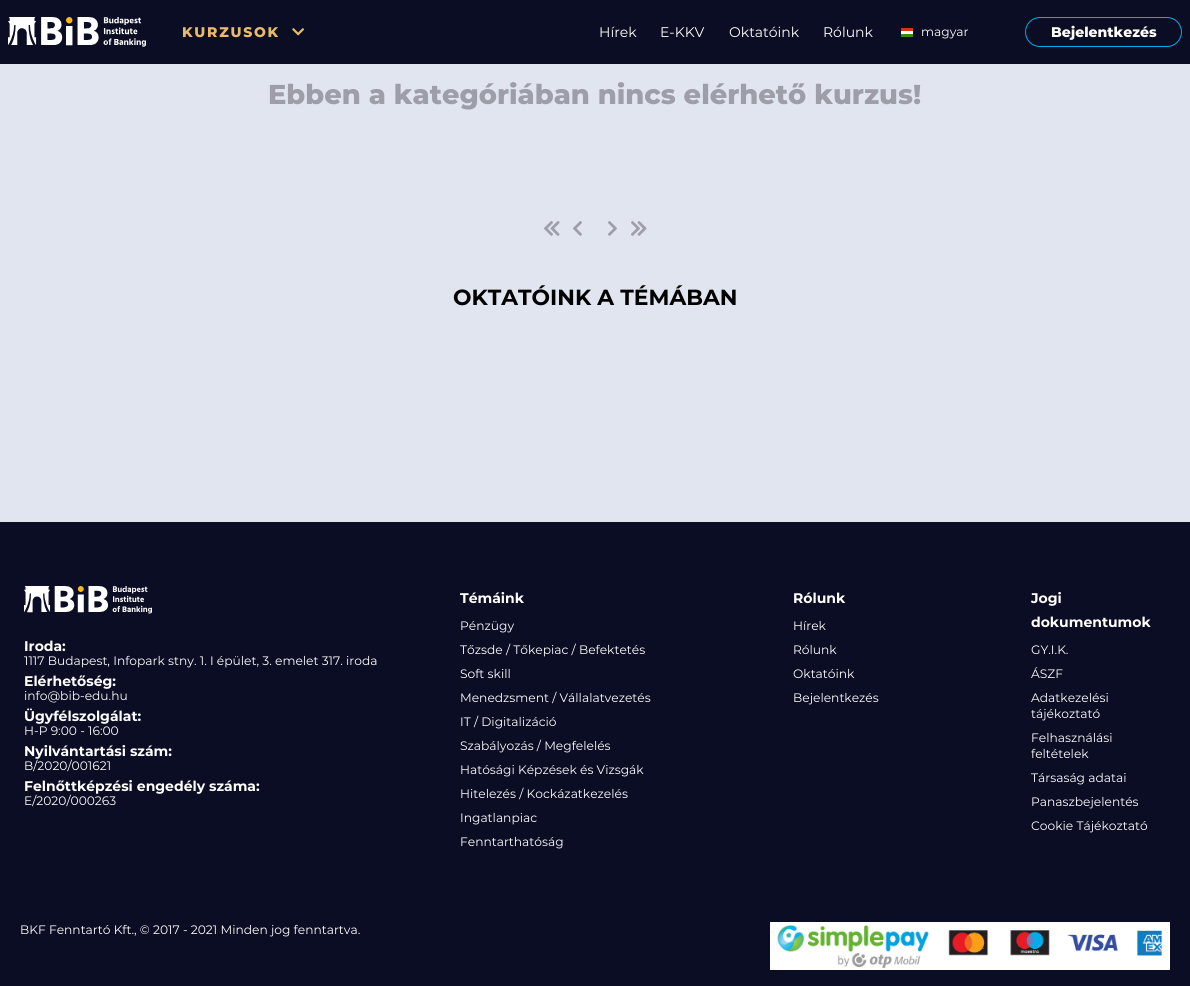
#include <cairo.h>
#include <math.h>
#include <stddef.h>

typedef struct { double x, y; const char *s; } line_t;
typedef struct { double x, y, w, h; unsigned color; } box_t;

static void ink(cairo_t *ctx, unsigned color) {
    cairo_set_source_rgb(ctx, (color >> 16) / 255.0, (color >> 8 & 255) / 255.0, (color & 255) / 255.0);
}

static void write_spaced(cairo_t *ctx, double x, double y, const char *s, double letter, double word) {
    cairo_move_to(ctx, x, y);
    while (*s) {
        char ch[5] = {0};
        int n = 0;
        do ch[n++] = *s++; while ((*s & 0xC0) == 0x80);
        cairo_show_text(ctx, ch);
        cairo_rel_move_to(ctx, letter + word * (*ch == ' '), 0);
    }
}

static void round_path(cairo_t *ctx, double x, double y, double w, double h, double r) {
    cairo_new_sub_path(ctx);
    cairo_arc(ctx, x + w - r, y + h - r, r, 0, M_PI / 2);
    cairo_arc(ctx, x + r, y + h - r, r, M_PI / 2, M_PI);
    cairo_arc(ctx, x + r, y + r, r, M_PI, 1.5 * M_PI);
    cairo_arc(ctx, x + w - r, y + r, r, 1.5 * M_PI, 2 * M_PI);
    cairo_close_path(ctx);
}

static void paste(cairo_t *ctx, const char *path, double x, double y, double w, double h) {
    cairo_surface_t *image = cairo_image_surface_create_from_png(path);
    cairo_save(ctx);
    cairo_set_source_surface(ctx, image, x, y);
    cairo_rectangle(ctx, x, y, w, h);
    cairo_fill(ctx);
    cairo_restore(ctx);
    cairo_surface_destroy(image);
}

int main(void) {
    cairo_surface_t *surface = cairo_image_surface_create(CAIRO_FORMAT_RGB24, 1190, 986);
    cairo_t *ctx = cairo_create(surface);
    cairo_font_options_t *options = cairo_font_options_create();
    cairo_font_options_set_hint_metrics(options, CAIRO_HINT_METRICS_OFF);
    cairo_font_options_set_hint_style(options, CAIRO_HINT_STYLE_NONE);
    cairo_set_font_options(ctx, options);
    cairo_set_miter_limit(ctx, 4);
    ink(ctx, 0xE0E5F0);
    cairo_paint(ctx);
    ink(ctx, 0x0A0D24);
    cairo_rectangle(ctx, 0, 0, 1190, 64);
    cairo_fill(ctx);
    paste(ctx, "media/1.png", 8, 17, 138, 30);
    cairo_select_font_face(ctx, "Montserrat ExtraBold", CAIRO_FONT_SLANT_NORMAL, CAIRO_FONT_WEIGHT_NORMAL);
    cairo_set_font_size(ctx, 14);
    ink(ctx, 0xEABA6B);
    write_spaced(ctx, 182, 37, "KURZUSOK", 1.75, 0);
    paste(ctx, "media/2.png", 292, 28, 12, 8);
    cairo_select_font_face(ctx, "Montserrat", CAIRO_FONT_SLANT_NORMAL, CAIRO_FONT_WEIGHT_NORMAL);
    ink(ctx, 0xFFFFFF);
    {
        static const line_t items[] = {
            {599, 37, "Hírek"},
            {660, 37, "E-KKV"},
            {729, 37, "Oktatóink"},
            {823, 37, "Rólunk"},
        };
        for (size_t i = 0; i < sizeof items / sizeof *items; i++) {
            cairo_move_to(ctx, items[i].x, items[i].y);
            cairo_show_text(ctx, items[i].s);
        }
    }
    {
        static const box_t items[] = {
            {901, 31, 12, 3, 0xFFFFFF},
            {901, 34, 12, 3, 0x388D00},
            {901, 28, 12, 3, 0xD43516},
        };
        for (size_t i = 0; i < sizeof items / sizeof *items; i++) {
            ink(ctx, items[i].color);
            cairo_rectangle(ctx, items[i].x, items[i].y, items[i].w, items[i].h);
            cairo_fill(ctx);
        }
    }
    cairo_set_font_size(ctx, 12.25);
    ink(ctx, 0xFFFFFF);
    cairo_move_to(ctx, 921, 36);
    cairo_show_text(ctx, "magyar");
    round_path(ctx, 1025.5, 17.5, 156, 29, 14.5);
    ink(ctx, 0x00ABE7);
    cairo_set_line_width(ctx, 1);
    cairo_stroke(ctx);
    cairo_select_font_face(ctx, "Montserrat ExtraBold", CAIRO_FONT_SLANT_NORMAL, CAIRO_FONT_WEIGHT_NORMAL);
    cairo_set_font_size(ctx, 14);
    ink(ctx, 0xFFFFFF);
    cairo_move_to(ctx, 1051, 37);
    cairo_show_text(ctx, "Bejelentkezés");
    cairo_set_font_size(ctx, 27.3);
    ink(ctx, 0x9D9EA7);
    cairo_move_to(ctx, 268, 104);
    cairo_show_text(ctx, "Ebben a kategóriában nincs elérhető kurzus!");
    paste(ctx, "media/3.png", 544, 221, 16, 15);
    paste(ctx, "media/4.png", 573, 221, 9, 15);
    paste(ctx, "media/5.png", 608, 221, 9, 15);
    paste(ctx, "media/6.png", 631, 221, 16, 15);
    cairo_select_font_face(ctx, "Montserrat", CAIRO_FONT_SLANT_NORMAL, CAIRO_FONT_WEIGHT_BOLD);
    cairo_set_font_size(ctx, 21.9);
    ink(ctx, 0x000000);
    cairo_move_to(ctx, 453, 305);
    cairo_show_text(ctx, "OKTATÓINK A TÉMÁBAN");
    ink(ctx, 0x0A0D24);
    cairo_rectangle(ctx, 0, 522, 1190, 464);
    cairo_fill(ctx);
    paste(ctx, "media/7.png", 24, 586, 128, 28);
    cairo_set_font_size(ctx, 14);
    ink(ctx, 0xFFFFFF);
    cairo_move_to(ctx, 24, 651);
    cairo_show_text(ctx, "Iroda:");
    cairo_select_font_face(ctx, "Montserrat", CAIRO_FONT_SLANT_NORMAL, CAIRO_FONT_WEIGHT_NORMAL);
    cairo_set_font_size(ctx, 12.25);
    cairo_move_to(ctx, 24, 665);
    cairo_show_text(ctx, "1117 Budapest, Infopark stny. 1. I épület, 3. emelet 317. iroda");
    cairo_select_font_face(ctx, "Montserrat", CAIRO_FONT_SLANT_NORMAL, CAIRO_FONT_WEIGHT_BOLD);
    cairo_set_font_size(ctx, 14);
    cairo_move_to(ctx, 24, 686);
    cairo_show_text(ctx, "Elérhetőség:");
    cairo_select_font_face(ctx, "Montserrat", CAIRO_FONT_SLANT_NORMAL, CAIRO_FONT_WEIGHT_NORMAL);
    cairo_set_font_size(ctx, 12.25);
    cairo_move_to(ctx, 24, 700);
    cairo_show_text(ctx, "info@bib-edu.hu");
    cairo_select_font_face(ctx, "Montserrat", CAIRO_FONT_SLANT_NORMAL, CAIRO_FONT_WEIGHT_BOLD);
    cairo_set_font_size(ctx, 14);
    cairo_move_to(ctx, 24, 721);
    cairo_show_text(ctx, "Ügyfélszolgálat:");
    cairo_select_font_face(ctx, "Montserrat", CAIRO_FONT_SLANT_NORMAL, CAIRO_FONT_WEIGHT_NORMAL);
    cairo_set_font_size(ctx, 12.25);
    cairo_move_to(ctx, 24, 735);
    cairo_show_text(ctx, "H-P 9:00 - 16:00");
    cairo_select_font_face(ctx, "Montserrat", CAIRO_FONT_SLANT_NORMAL, CAIRO_FONT_WEIGHT_BOLD);
    cairo_set_font_size(ctx, 14);
    cairo_move_to(ctx, 24, 756);
    cairo_show_text(ctx, "Nyilvántartási szám:");
    cairo_select_font_face(ctx, "Montserrat", CAIRO_FONT_SLANT_NORMAL, CAIRO_FONT_WEIGHT_NORMAL);
    cairo_set_font_size(ctx, 12.25);
    cairo_move_to(ctx, 24, 770);
    cairo_show_text(ctx, "B/2020/001621");
    cairo_select_font_face(ctx, "Montserrat", CAIRO_FONT_SLANT_NORMAL, CAIRO_FONT_WEIGHT_BOLD);
    cairo_set_font_size(ctx, 14);
    cairo_move_to(ctx, 24, 791);
    cairo_show_text(ctx, "Felnőttképzési engedély száma:");
    cairo_select_font_face(ctx, "Montserrat", CAIRO_FONT_SLANT_NORMAL, CAIRO_FONT_WEIGHT_NORMAL);
    cairo_set_font_size(ctx, 12.25);
    cairo_move_to(ctx, 24, 805);
    cairo_show_text(ctx, "E/2020/000263");
    cairo_select_font_face(ctx, "Montserrat", CAIRO_FONT_SLANT_NORMAL, CAIRO_FONT_WEIGHT_BOLD);
    cairo_set_font_size(ctx, 14);
    cairo_move_to(ctx, 460, 603);
    cairo_show_text(ctx, "Témáink");
    cairo_select_font_face(ctx, "Montserrat", CAIRO_FONT_SLANT_NORMAL, CAIRO_FONT_WEIGHT_NORMAL);
    cairo_set_font_size(ctx, 12.25);
    {
        static const line_t items[] = {
            {460, 630, "Pénzügy"},
            {460, 654, "Tőzsde / Tőkepiac / Befektetés"},
            {460, 678, "Soft skill"},
            {460, 702, "Menedzsment / Vállalatvezetés"},
            {460, 726, "IT / Digitalizáció"},
            {460, 750, "Szabályozás / Megfelelés"},
            {460, 774, "Hatósági Képzések és Vizsgák"},
            {460, 798, "Hitelezés / Kockázatkezelés"},
            {460, 822, "Ingatlanpiac"},
            {460, 846, "Fenntarthatóság"},
        };
        for (size_t i = 0; i < sizeof items / sizeof *items; i++) {
            cairo_move_to(ctx, items[i].x, items[i].y);
            cairo_show_text(ctx, items[i].s);
        }
    }
    cairo_select_font_face(ctx, "Montserrat", CAIRO_FONT_SLANT_NORMAL, CAIRO_FONT_WEIGHT_BOLD);
    cairo_set_font_size(ctx, 14);
    cairo_move_to(ctx, 793, 603);
    cairo_show_text(ctx, "Rólunk");
    cairo_select_font_face(ctx, "Montserrat", CAIRO_FONT_SLANT_NORMAL, CAIRO_FONT_WEIGHT_NORMAL);
    cairo_set_font_size(ctx, 12.25);
    {
        static const line_t items[] = {
            {793, 630, "Hírek"},
            {793, 654, "Rólunk"},
            {793, 678, "Oktatóink"},
            {793, 702, "Bejelentkezés"},
        };
        for (size_t i = 0; i < sizeof items / sizeof *items; i++) {
            cairo_move_to(ctx, items[i].x, items[i].y);
            cairo_show_text(ctx, items[i].s);
        }
    }
    cairo_select_font_face(ctx, "Montserrat", CAIRO_FONT_SLANT_NORMAL, CAIRO_FONT_WEIGHT_BOLD);
    cairo_set_font_size(ctx, 14);
    cairo_move_to(ctx, 1031, 603);
    cairo_show_text(ctx, "Jogi");
    cairo_move_to(ctx, 1031, 627);
    cairo_show_text(ctx, "dokumentumok");
    cairo_select_font_face(ctx, "Montserrat", CAIRO_FONT_SLANT_NORMAL, CAIRO_FONT_WEIGHT_NORMAL);
    cairo_set_font_size(ctx, 12.25);
    {
        static const line_t items[] = {
            {1031, 654, "GY.I.K."},
            {1031, 678, "ÁSZF"},
            {1031, 702, "Adatkezelési"},
            {1031, 718, "tájékoztató"},
            {1031, 742, "Felhasználási"},
            {1031, 758, "feltételek"},
            {1031, 782, "Társaság adatai"},
            {1031, 806, "Panaszbejelentés"},
            {1031, 830, "Cookie Tájékoztató"},
            {20, 934, "BKF Fenntartó Kft., © 2017 - 2021 Minden jog fenntartva."},
        };
        for (size_t i = 0; i < sizeof items / sizeof *items; i++) {
            cairo_move_to(ctx, items[i].x, items[i].y);
            cairo_show_text(ctx, items[i].s);
        }
    }
    paste(ctx, "media/8.png", 770, 922, 400, 48);
    cairo_surface_write_to_png(surface, "image.png");
    cairo_font_options_destroy(options);
    cairo_destroy(ctx);
    cairo_surface_destroy(surface);
    return 0;
}
